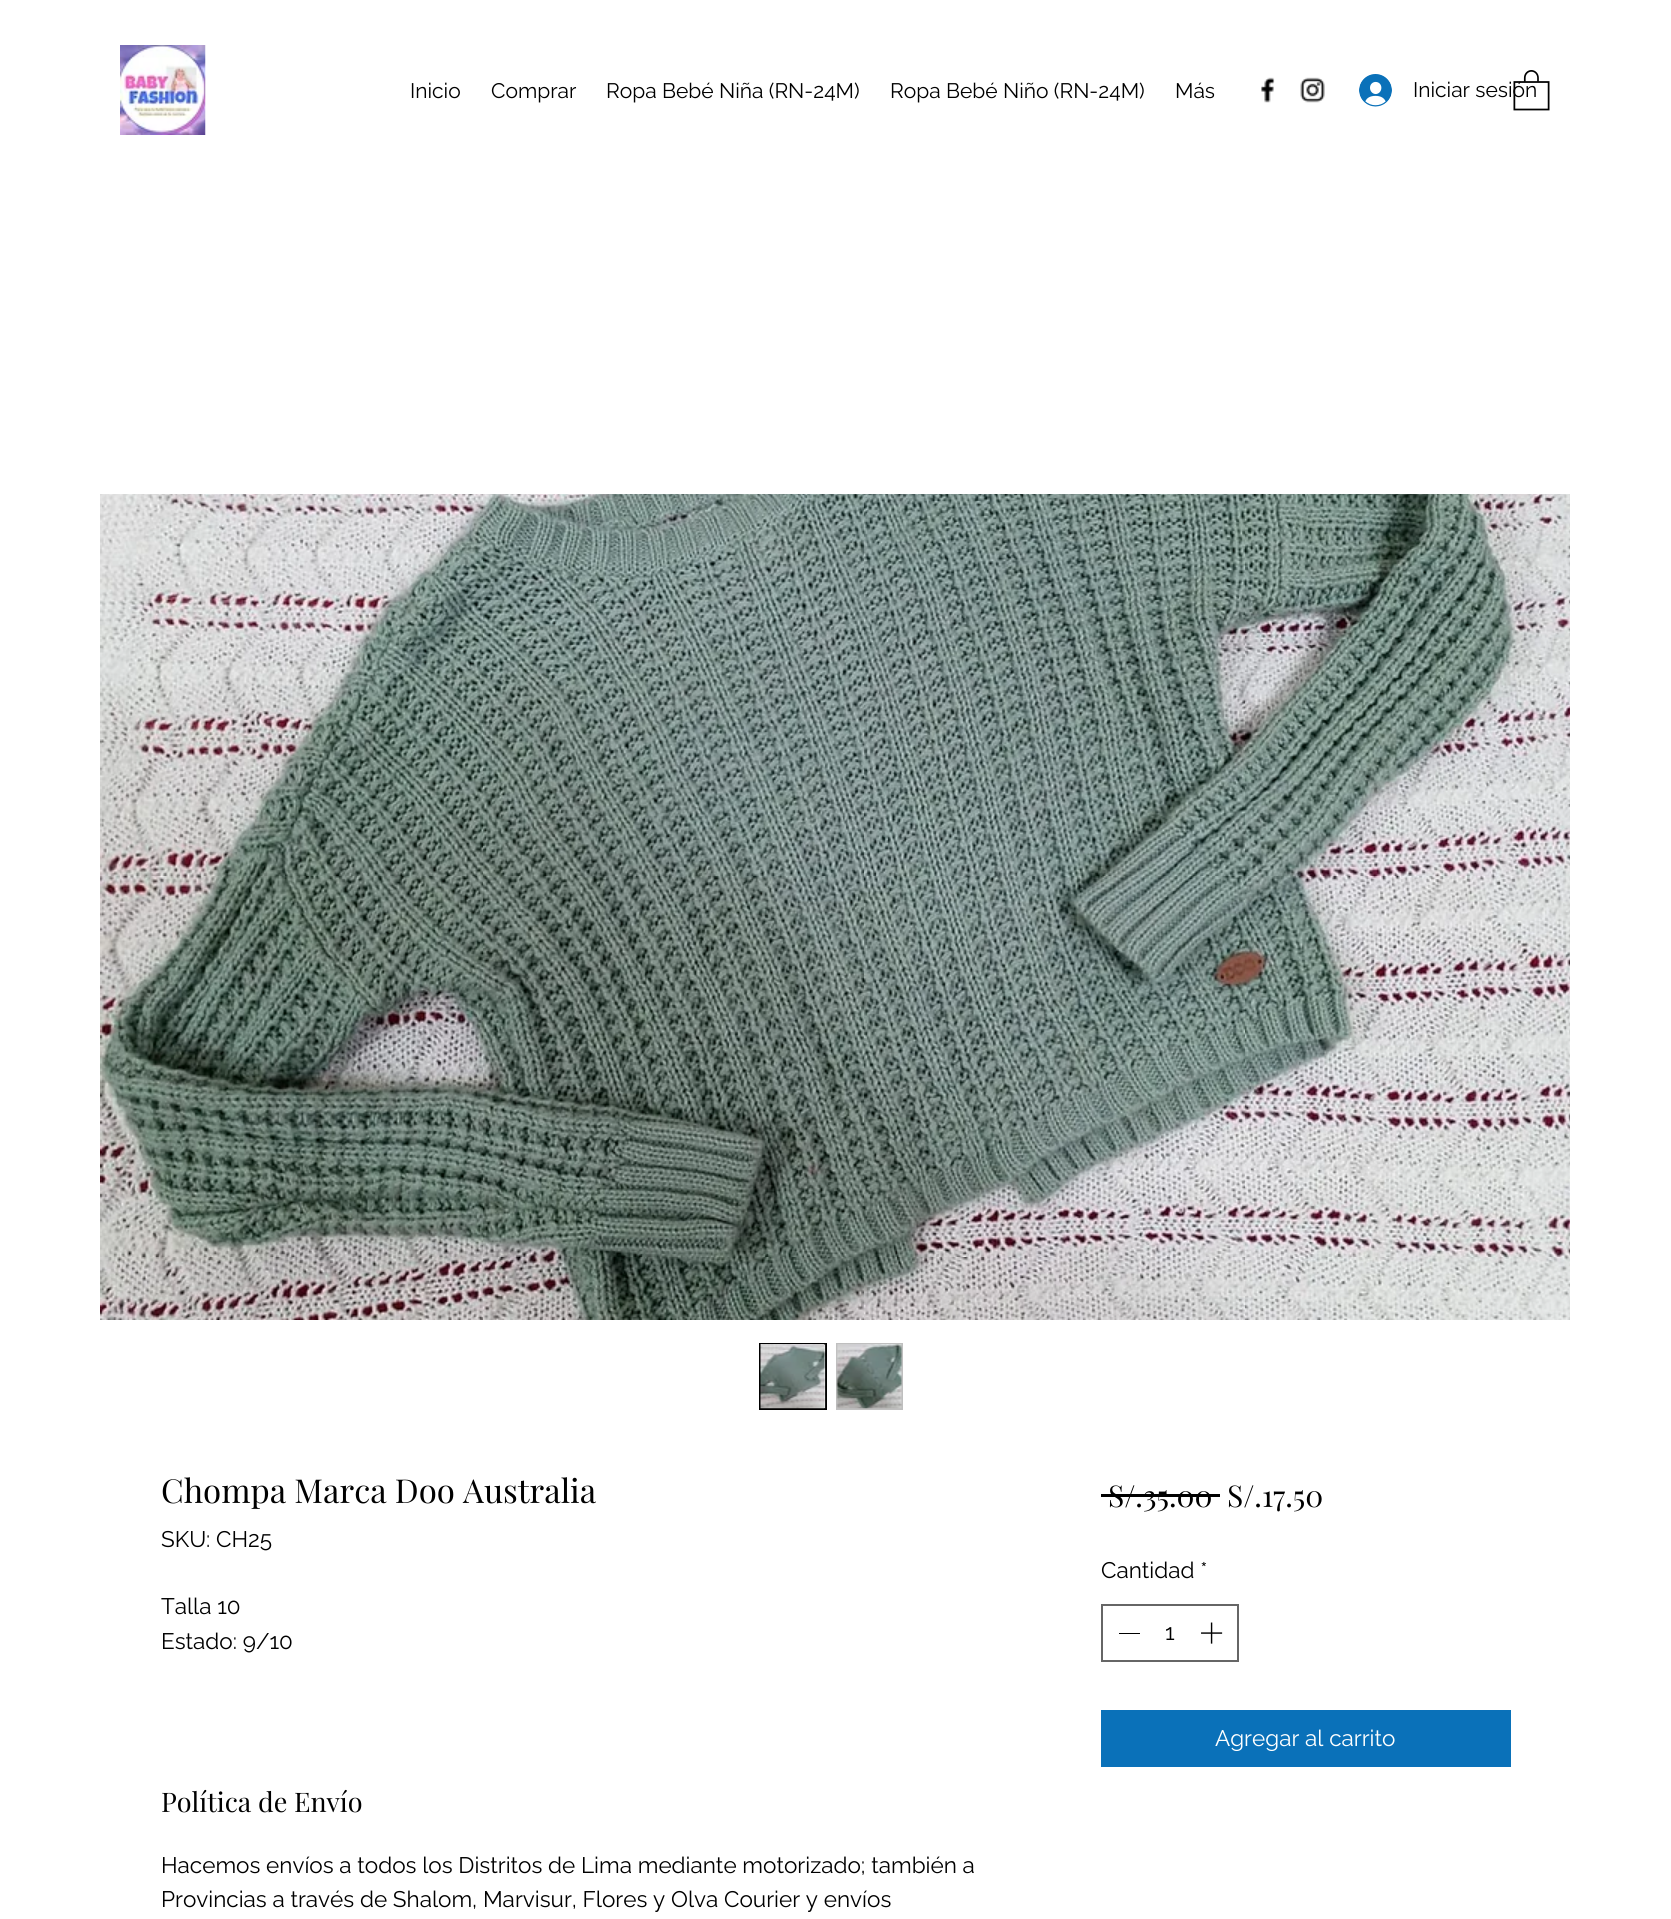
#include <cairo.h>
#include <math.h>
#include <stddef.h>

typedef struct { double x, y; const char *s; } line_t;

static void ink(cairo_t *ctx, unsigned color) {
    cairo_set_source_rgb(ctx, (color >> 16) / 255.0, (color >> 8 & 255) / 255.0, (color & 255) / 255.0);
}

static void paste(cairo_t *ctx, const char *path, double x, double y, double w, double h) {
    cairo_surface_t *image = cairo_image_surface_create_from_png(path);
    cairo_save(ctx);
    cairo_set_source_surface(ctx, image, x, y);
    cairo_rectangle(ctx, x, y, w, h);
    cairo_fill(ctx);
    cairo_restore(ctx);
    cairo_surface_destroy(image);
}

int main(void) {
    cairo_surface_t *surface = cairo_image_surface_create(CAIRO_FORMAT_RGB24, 1671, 1919);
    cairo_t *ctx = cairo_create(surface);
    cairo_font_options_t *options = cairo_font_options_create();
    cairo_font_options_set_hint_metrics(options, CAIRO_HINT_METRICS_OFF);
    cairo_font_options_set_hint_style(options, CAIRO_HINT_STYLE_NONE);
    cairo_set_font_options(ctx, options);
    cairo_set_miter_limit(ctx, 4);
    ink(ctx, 0xFFFFFF);
    cairo_paint(ctx);
    paste(ctx, "media/1.png", 120, 45, 86, 90);
    paste(ctx, "media/2.png", 1261, 77, 14, 26);
    paste(ctx, "media/3.png", 1300, 77, 25, 26);
    cairo_select_font_face(ctx, "Raleway", CAIRO_FONT_SLANT_NORMAL, CAIRO_FONT_WEIGHT_NORMAL);
    cairo_set_font_size(ctx, 21);
    ink(ctx, 0x000000);
    cairo_move_to(ctx, 1413, 97);
    cairo_show_text(ctx, "Iniciar sesión");
    paste(ctx, "media/4.png", 1513, 70, 37, 41);
    {
        static const line_t items[] = {
            {410, 98, "Inicio"},
            {491, 98, "Comprar"},
            {606, 98, "Ropa Bebé Niña (RN-24M)"},
            {890, 98, "Ropa Bebé Niño (RN-24M)"},
            {1175, 98, "Más"},
        };
        for (size_t i = 0; i < sizeof items / sizeof *items; i++) {
            cairo_move_to(ctx, items[i].x, items[i].y);
            cairo_show_text(ctx, items[i].s);
        }
    }
    paste(ctx, "media/5.png", 1359, 74, 33, 33);
    paste(ctx, "media/6.png", 100, 494, 1470, 826);
    cairo_rectangle(ctx, 760, 1344, 66, 65);
    cairo_stroke(ctx);
    paste(ctx, "media/7.png", 760, 1344, 66, 65);
    cairo_rectangle(ctx, 837, 1344, 65, 65);
    ink(ctx, 0xBFBFBF);
    cairo_stroke(ctx);
    paste(ctx, "media/8.png", 836, 1344, 66, 65);
    cairo_select_font_face(ctx, "Playfair Display", CAIRO_FONT_SLANT_NORMAL, CAIRO_FONT_WEIGHT_NORMAL);
    cairo_set_font_size(ctx, 33);
    ink(ctx, 0x000000);
    cairo_move_to(ctx, 161, 1503);
    cairo_show_text(ctx, "Chompa Marca Doo Australia");
    cairo_select_font_face(ctx, "Raleway", CAIRO_FONT_SLANT_NORMAL, CAIRO_FONT_WEIGHT_NORMAL);
    cairo_set_font_size(ctx, 22.5);
    {
        static const line_t items[] = {
            {161, 1547, "SKU: CH25"},
            {161, 1614, "Talla 10"},
            {161, 1649, "Estado: 9/10"},
        };
        for (size_t i = 0; i < sizeof items / sizeof *items; i++) {
            cairo_move_to(ctx, items[i].x, items[i].y);
            cairo_show_text(ctx, items[i].s);
        }
    }
    cairo_select_font_face(ctx, "Playfair Display", CAIRO_FONT_SLANT_NORMAL, CAIRO_FONT_WEIGHT_NORMAL);
    cairo_set_font_size(ctx, 27);
    cairo_move_to(ctx, 161, 1812);
    cairo_show_text(ctx, "Política de Envío");
    cairo_select_font_face(ctx, "Raleway", CAIRO_FONT_SLANT_NORMAL, CAIRO_FONT_WEIGHT_NORMAL);
    cairo_set_font_size(ctx, 22.5);
    cairo_move_to(ctx, 161, 1873);
    cairo_show_text(ctx, "Hacemos envíos a todos los Distritos de Lima mediante motorizado; también a");
    cairo_move_to(ctx, 161, 1907);
    cairo_show_text(ctx, "Provincias a través de Shalom, Marvisur, Flores y Olva Courier y envíos");
    cairo_select_font_face(ctx, "Playfair Display", CAIRO_FONT_SLANT_NORMAL, CAIRO_FONT_WEIGHT_NORMAL);
    cairo_set_font_size(ctx, 30);
    cairo_move_to(ctx, 1108, 1507);
    cairo_show_text(ctx, "S/.35.00");
    cairo_rectangle(ctx, 1101, 1494, 119, 3);
    cairo_fill(ctx);
    cairo_move_to(ctx, 1227, 1507);
    cairo_show_text(ctx, "S/.17.50");
    cairo_select_font_face(ctx, "Raleway", CAIRO_FONT_SLANT_NORMAL, CAIRO_FONT_WEIGHT_NORMAL);
    cairo_set_font_size(ctx, 22.5);
    cairo_move_to(ctx, 1101, 1578);
    cairo_show_text(ctx, "Cantidad *");
    cairo_rectangle(ctx, 1102, 1605, 136, 56);
    ink(ctx, 0x666666);
    cairo_stroke(ctx);
    ink(ctx, 0x000000);
    cairo_rectangle(ctx, 1119, 1633, 21, 1);
    cairo_fill(ctx);
    cairo_move_to(ctx, 1165, 1640);
    cairo_show_text(ctx, "1");
    paste(ctx, "media/9.png", 1201, 1622, 22, 22);
    ink(ctx, 0x0A71B9);
    cairo_rectangle(ctx, 1101, 1710, 410, 57);
    cairo_fill(ctx);
    ink(ctx, 0xFFFFFF);
    cairo_move_to(ctx, 1215, 1746);
    cairo_show_text(ctx, "Agregar al carrito");
    cairo_surface_write_to_png(surface, "image.png");
    cairo_font_options_destroy(options);
    cairo_destroy(ctx);
    cairo_surface_destroy(surface);
    return 0;
}
